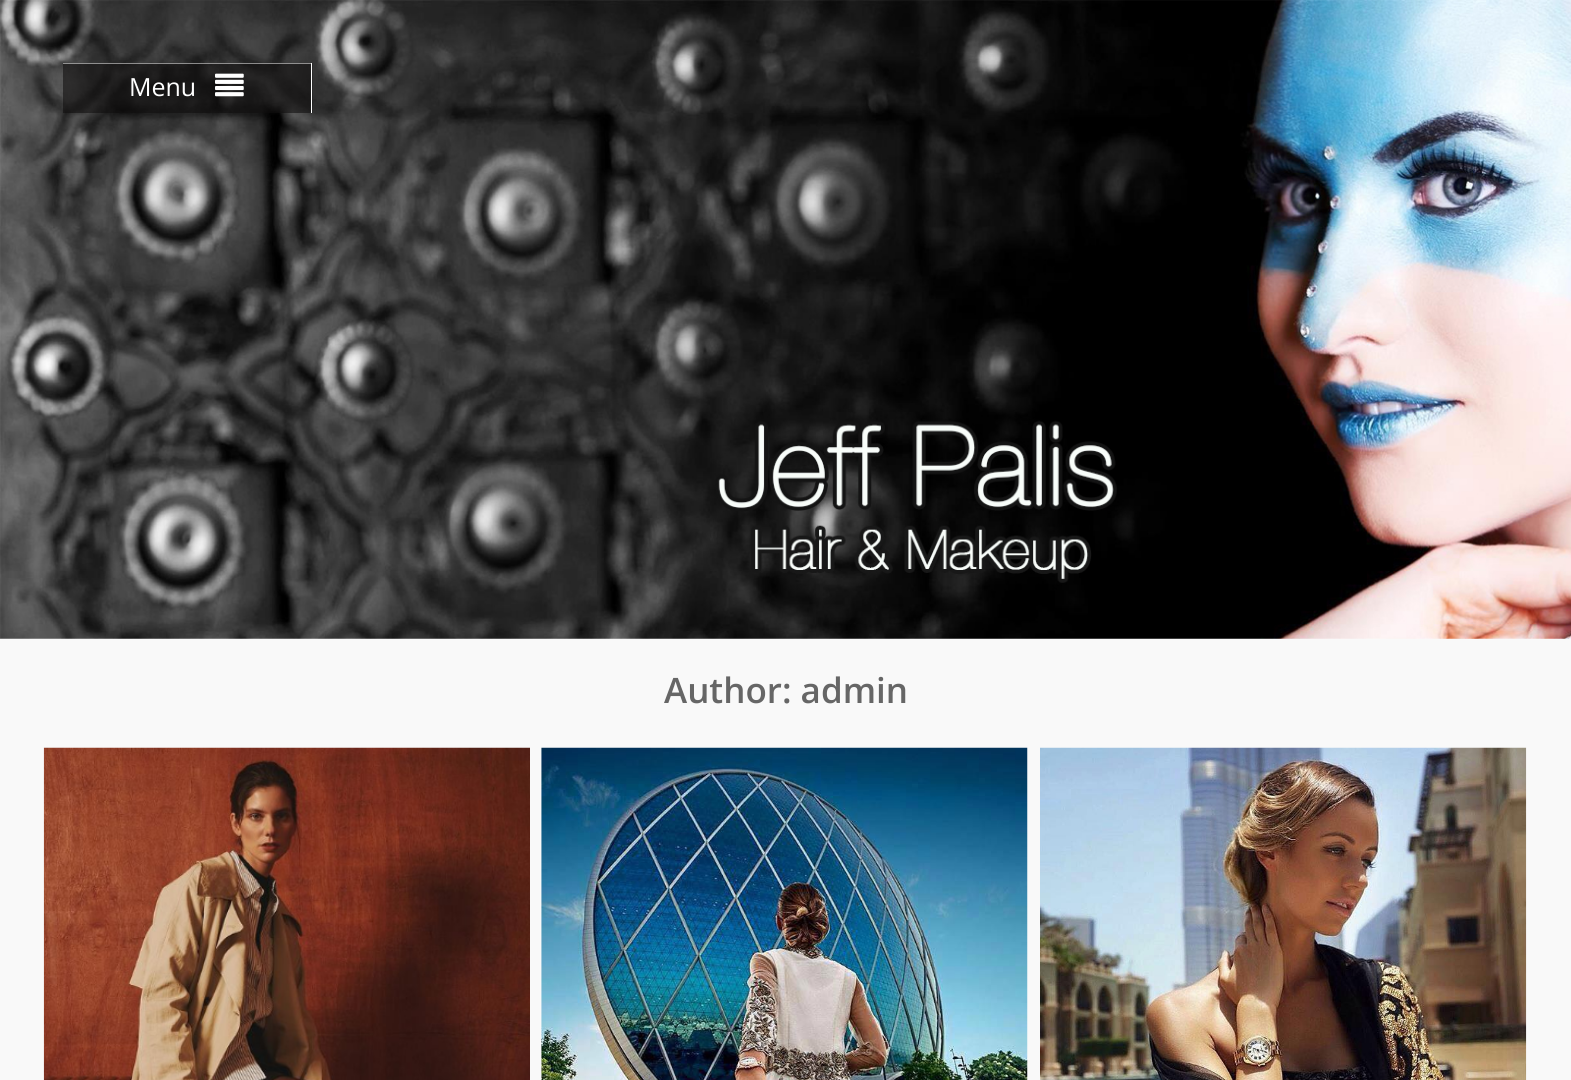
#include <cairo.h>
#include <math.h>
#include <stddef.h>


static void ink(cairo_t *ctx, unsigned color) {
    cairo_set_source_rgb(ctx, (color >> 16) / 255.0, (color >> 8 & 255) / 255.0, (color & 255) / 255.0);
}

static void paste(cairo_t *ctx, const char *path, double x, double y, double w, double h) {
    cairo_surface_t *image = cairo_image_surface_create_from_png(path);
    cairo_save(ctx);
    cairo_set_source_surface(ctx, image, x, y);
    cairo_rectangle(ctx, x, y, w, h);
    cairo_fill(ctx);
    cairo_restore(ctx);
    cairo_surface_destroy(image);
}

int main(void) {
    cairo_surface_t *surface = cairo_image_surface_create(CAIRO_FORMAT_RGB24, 1571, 1080);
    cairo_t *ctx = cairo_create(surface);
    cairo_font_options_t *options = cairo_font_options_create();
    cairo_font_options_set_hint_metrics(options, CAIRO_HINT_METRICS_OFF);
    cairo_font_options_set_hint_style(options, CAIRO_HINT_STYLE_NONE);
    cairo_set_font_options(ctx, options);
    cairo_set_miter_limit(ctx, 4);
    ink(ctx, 0xF9F9F9);
    cairo_paint(ctx);
    paste(ctx, "media/1.png", 0, 0, 1571, 639);
    cairo_set_source_rgba(ctx, 0, 0, 0, 0.19);
    cairo_rectangle(ctx, 63, 63, 250, 50);
    cairo_fill(ctx);
    ink(ctx, 0xFFFFFF);
    cairo_rectangle(ctx, 311, 63, 1, 50);
    cairo_fill(ctx);
    cairo_set_source_rgba(ctx, 0.075, 0.071, 0.071, 0.49);
    cairo_rectangle(ctx, 63, 63, 248, 50);
    cairo_fill(ctx);
    cairo_set_source_rgba(ctx, 1, 1, 1, 0.5);
    cairo_rectangle(ctx, 63, 63, 248, 1);
    cairo_fill(ctx);
    cairo_select_font_face(ctx, "Open Sans", CAIRO_FONT_SLANT_NORMAL, CAIRO_FONT_WEIGHT_NORMAL);
    cairo_set_font_size(ctx, 25);
    ink(ctx, 0xFFFFFF);
    cairo_move_to(ctx, 129, 96);
    cairo_show_text(ctx, "Menu");
    paste(ctx, "media/2.png", 215, 73, 29, 24);
    cairo_select_font_face(ctx, "Open Sans SemiBold", CAIRO_FONT_SLANT_NORMAL, CAIRO_FONT_WEIGHT_NORMAL);
    cairo_set_font_size(ctx, 35);
    ink(ctx, 0x666666);
    cairo_move_to(ctx, 664, 703);
    cairo_show_text(ctx, "Author: admin");
    paste(ctx, "media/3.png", 43, 747, 487, 333);
    paste(ctx, "media/4.png", 541, 747, 487, 333);
    paste(ctx, "media/5.png", 1040, 747, 487, 333);
    cairo_surface_write_to_png(surface, "image.png");
    cairo_font_options_destroy(options);
    cairo_destroy(ctx);
    cairo_surface_destroy(surface);
    return 0;
}
